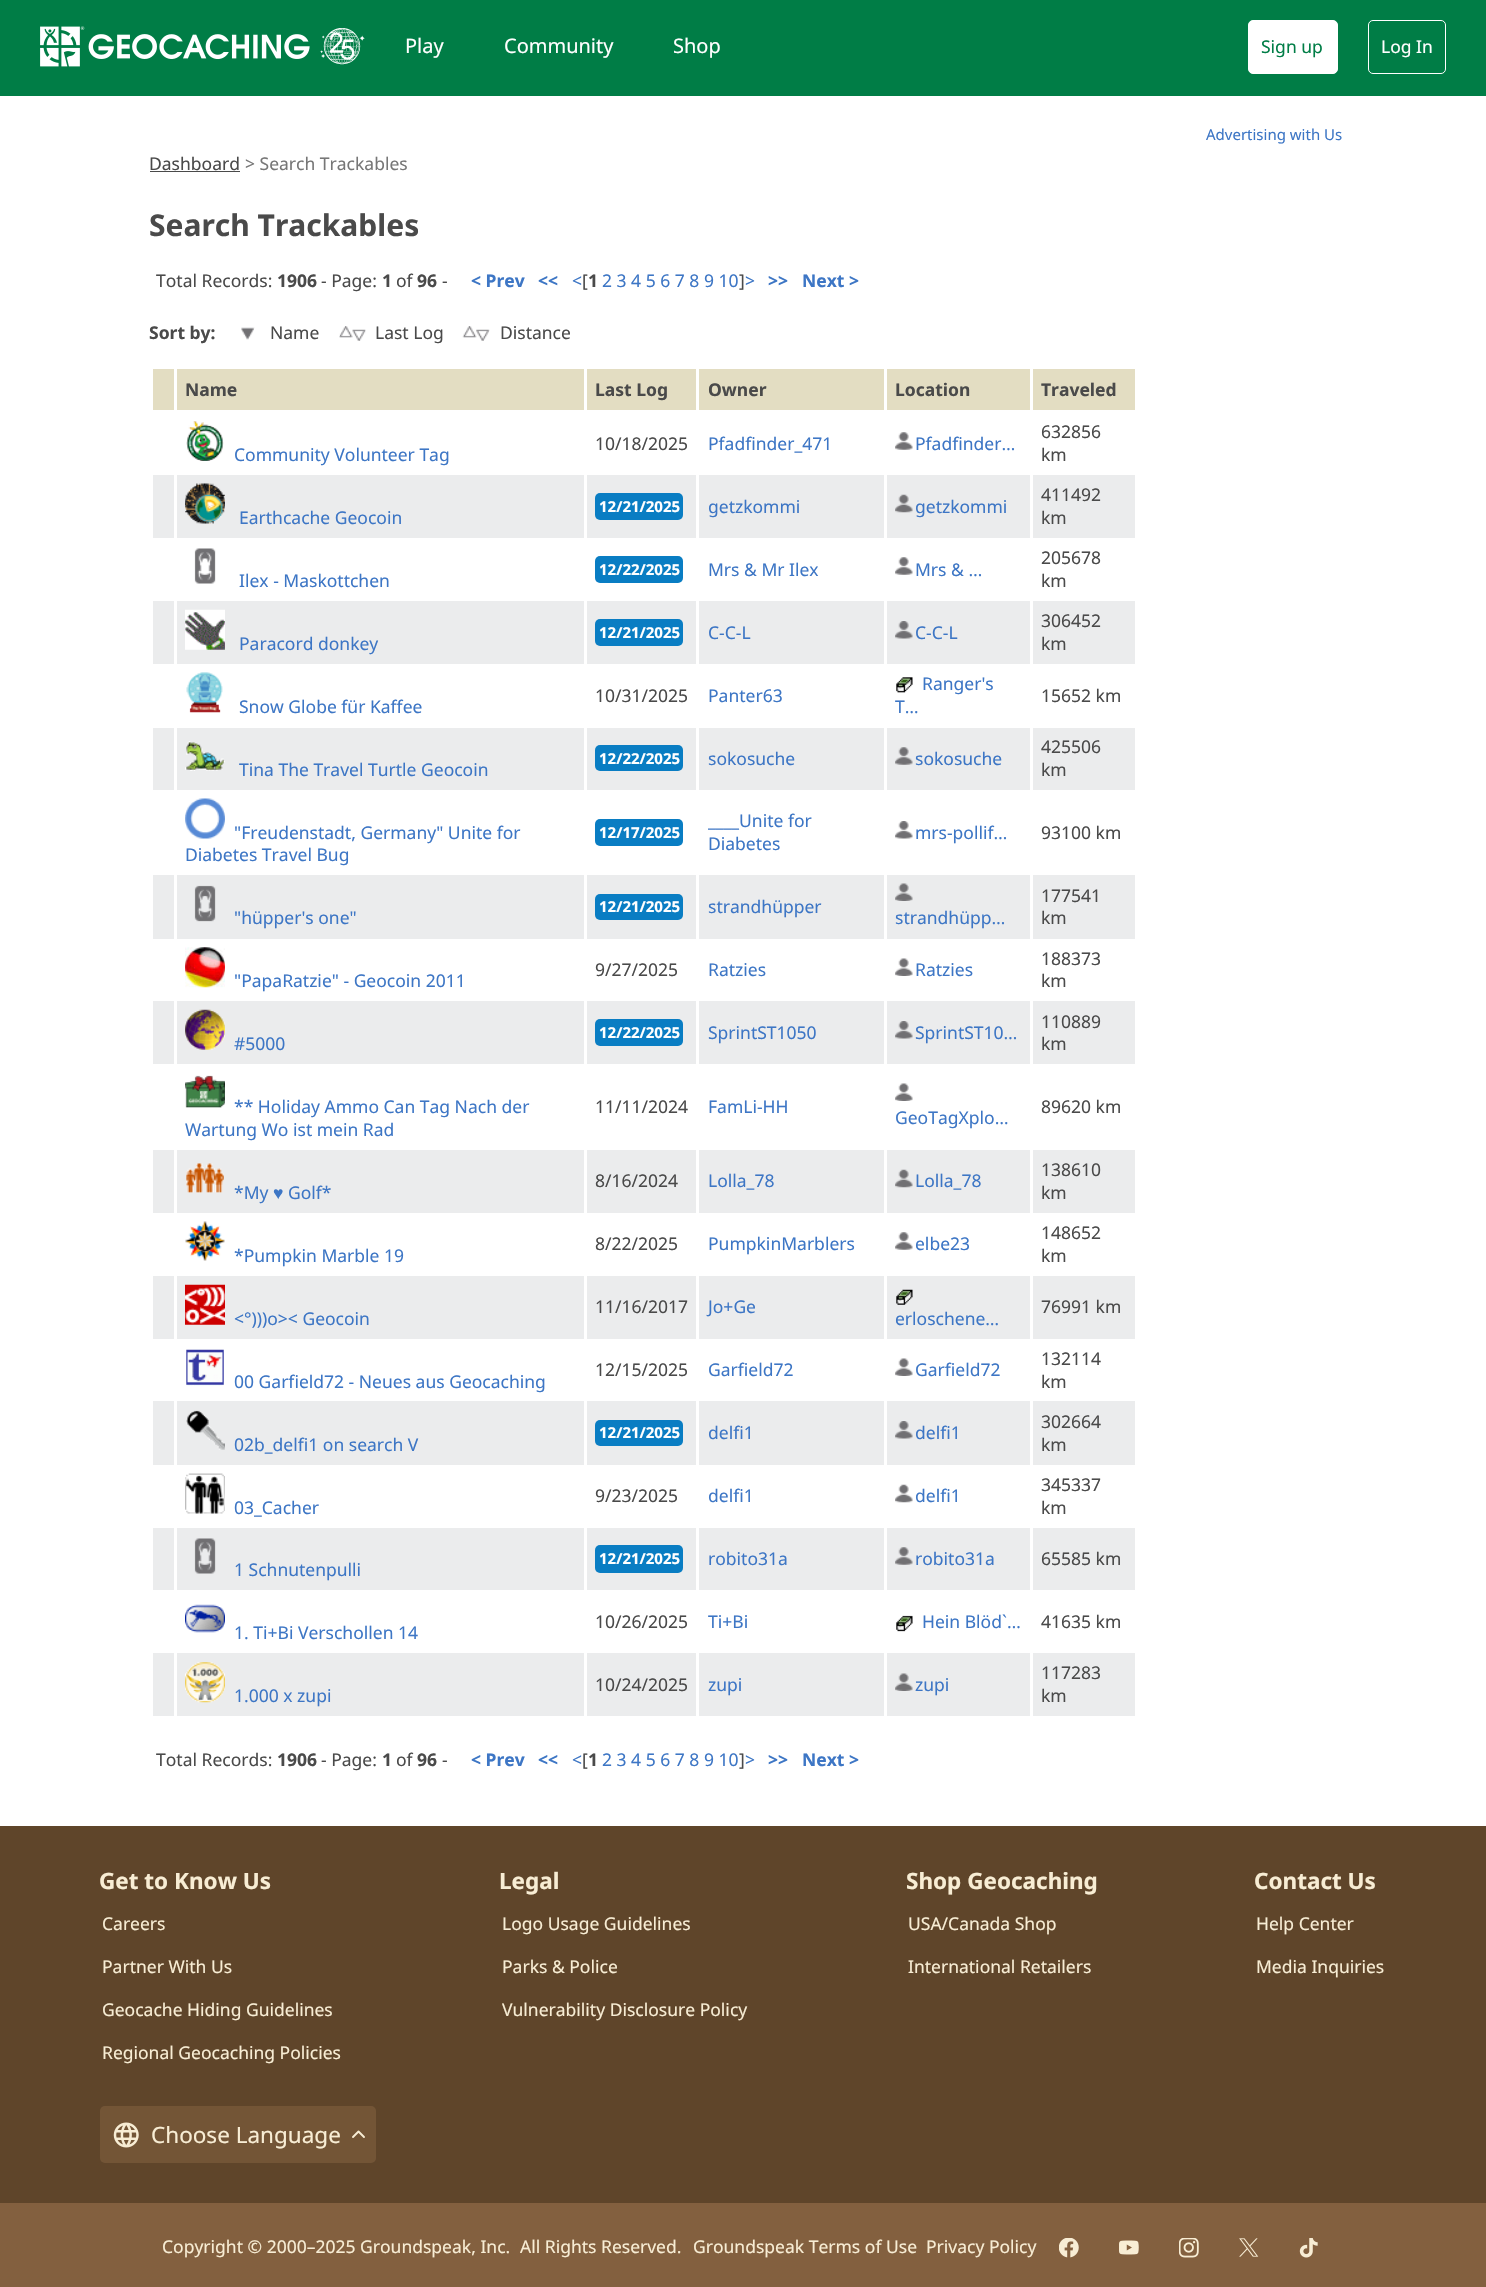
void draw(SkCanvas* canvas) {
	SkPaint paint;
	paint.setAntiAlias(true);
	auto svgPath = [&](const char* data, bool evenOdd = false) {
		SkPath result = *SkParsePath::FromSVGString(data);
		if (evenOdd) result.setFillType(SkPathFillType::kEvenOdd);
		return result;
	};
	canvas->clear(0xffffffff);
	paint.setColor(0xff007d46);
	canvas->drawRect(SkRect::MakeXYWH(0, 0, 1486, 96), paint);
	canvas->drawImageRect(SkImages::DeferredFromEncodedData(SkData::MakeFromFileName("img1.png")), SkRect::MakeXYWH(40, 26, 270, 41), SkSamplingOptions());
	canvas->drawImageRect(SkImages::DeferredFromEncodedData(SkData::MakeFromFileName("img2.png")), SkRect::MakeXYWH(320, 28, 45, 37), SkSamplingOptions());
	SkFont f1(fontMgr->matchFamilyStyle("Noto Sans", SkFontStyle::Normal()), 20);
	f1.setSubpixel(true);
	paint.setColor(0xffffffff);
	canvas->drawString("Play", 405, 53, f1, paint);
	canvas->drawString("Community", 504, 53, f1, paint);
	canvas->drawString("Shop", 673, 53, f1, paint);
	canvas->drawRoundRect(SkRect::MakeXYWH(1248.5, 20.5, 89, 53), 4.5, 4.5, paint);
	paint.setStroke(true);
	paint.setStrokeWidth(1);
	canvas->drawRoundRect(SkRect::MakeXYWH(1248.5, 20.5, 89, 53), 4.5, 4.5, paint);
	SkFont f2(fontMgr->matchFamilyStyle("Noto Sans", SkFontStyle::Normal()), 17.5);
	f2.setSubpixel(true);
	paint.setStroke(false);
	paint.setColor(0xff007d46);
	canvas->drawString("Sign up", 1261, 53, f2, paint);
	paint.setStroke(true);
	paint.setColor(0xffffffff);
	canvas->drawRoundRect(SkRect::MakeXYWH(1368.5, 20.5, 77, 53), 4.5, 4.5, paint);
	paint.setStroke(false);
	canvas->drawString("Log In", 1381, 53, f2, paint);
	SkFont f3(fontMgr->matchFamilyStyle("Noto Sans", SkFontStyle::Normal()), 15);
	f3.setSubpixel(true);
	paint.setColor(0xff3d76c5);
	canvas->drawString("Advertising with Us", 1206, 140, f3, paint);
	paint.setColor(0xff4a4a4a);
	canvas->drawString("Dashboard", 149, 170, f2, paint);
	canvas->drawRect(SkRect::MakeXYWH(150, 171, 90, 1), paint);
	paint.setColor(0xff777777);
	canvas->drawString("> Search Trackables", 245, 170, f2, paint);
	SkFont f4(fontMgr->matchFamilyStyle("Noto Sans", SkFontStyle::Bold()), 30);
	f4.setSubpixel(true);
	paint.setColor(0xff4a4a4a);
	canvas->drawString("Search Trackables", 149, 236, f4, paint);
	canvas->drawString("Total Records:", 156, 287, f2, paint);
	SkFont f5(fontMgr->matchFamilyStyle("Noto Sans", SkFontStyle::Bold()), 17.5);
	f5.setSubpixel(true);
	canvas->drawString("1906", 277, 287, f5, paint);
	canvas->drawString("- Page:", 321, 287, f2, paint);
	canvas->drawString("1", 382, 287, f5, paint);
	canvas->drawString("of", 396, 287, f2, paint);
	canvas->drawString("96", 417, 287, f5, paint);
	canvas->drawString("-", 442, 287, f2, paint);
	paint.setColor(0xff3d76c5);
	canvas->drawString("< Prev", 471, 287, f5, paint);
	canvas->drawString("<<", 538, 287, f5, paint);
	canvas->drawString("<", 572, 287, f2, paint);
	paint.setColor(0xff4a4a4a);
	canvas->drawString("[", 582, 287, f2, paint);
	canvas->drawString("1", 588, 287, f5, paint);
	paint.setColor(0xff3d76c5);
	canvas->drawString("2 3 4 5 6 7 8 9 10", 602, 287, f2, paint);
	paint.setColor(0xff4a4a4a);
	canvas->drawString("]", 739, 287, f2, paint);
	paint.setColor(0xff3d76c5);
	canvas->drawString(">", 745, 287, f2, paint);
	canvas->drawString(">>", 768, 287, f5, paint);
	canvas->drawString("Next >", 802, 287, f5, paint);
	paint.setColor(0xff4a4a4a);
	canvas->drawString("Sort by:", 149, 339, f5, paint);
	canvas->drawImageRect(SkImages::DeferredFromEncodedData(SkData::MakeFromFileName("img3.png")), SkRect::MakeXYWH(241, 327, 14, 13), SkSamplingOptions());
	canvas->drawString("Name", 270, 339, f2, paint);
	canvas->drawImageRect(SkImages::DeferredFromEncodedData(SkData::MakeFromFileName("img4.png")), SkRect::MakeXYWH(339, 326, 27, 15), SkSamplingOptions());
	canvas->drawString("Last Log", 375, 339, f2, paint);
	canvas->drawImageRect(SkImages::DeferredFromEncodedData(SkData::MakeFromFileName("img5.png")), SkRect::MakeXYWH(462, 326, 28, 15), SkSamplingOptions());
	canvas->drawString("Distance", 500, 339, f2, paint);
	paint.setColor(0xffe3ddc2);
	canvas->drawRect(SkRect::MakeXYWH(153, 369, 21, 41), paint);
	canvas->drawRect(SkRect::MakeXYWH(177, 369, 407, 41), paint);
	paint.setColor(0xff4a4a4a);
	canvas->drawString("Name", 185, 396, f5, paint);
	paint.setColor(0xffe3ddc2);
	canvas->drawRect(SkRect::MakeXYWH(587, 369, 109, 41), paint);
	paint.setColor(0xff4a4a4a);
	canvas->drawString("Last Log", 595, 396, f5, paint);
	paint.setColor(0xffe3ddc2);
	canvas->drawRect(SkRect::MakeXYWH(699, 369, 185, 41), paint);
	paint.setColor(0xff4a4a4a);
	canvas->drawString("Owner", 708, 396, f5, paint);
	paint.setColor(0xffe3ddc2);
	canvas->drawRect(SkRect::MakeXYWH(887, 369, 143, 41), paint);
	paint.setColor(0xff4a4a4a);
	canvas->drawString("Location", 895, 396, f5, paint);
	paint.setColor(0xffe3ddc2);
	canvas->drawRect(SkRect::MakeXYWH(1033, 369, 102, 41), paint);
	paint.setColor(0xff4a4a4a);
	canvas->drawString("Traveled", 1041, 396, f5, paint);
	canvas->drawString("10/18/2025", 595, 450, f2, paint);
	paint.setColor(0xff3d76c5);
	canvas->drawString("Pfadfinder_471", 708, 450, f2, paint);
	canvas->drawImageRect(SkImages::DeferredFromEncodedData(SkData::MakeFromFileName("img6.png")), SkRect::MakeXYWH(895, 432, 18, 18), SkSamplingOptions());
	canvas->drawString("Pfadfinder…", 915, 450, f2, paint);
	paint.setColor(0xff4a4a4a);
	canvas->drawString("632856", 1041, 438, f2, paint);
	canvas->drawString("km", 1041, 461, f2, paint);
	canvas->drawImageRect(SkImages::DeferredFromEncodedData(SkData::MakeFromFileName("img7.png")), SkRect::MakeXYWH(186, 421, 38, 40), SkSamplingOptions());
	paint.setColor(0xff3d76c5);
	canvas->drawString("Community Volunteer Tag", 234, 461, f2, paint);
	paint.setColor(0xffebeced);
	canvas->drawRect(SkRect::MakeXYWH(153, 475, 982, 63), paint);
	paint.setColor(0xff097dc3);
	canvas->drawRoundRect(SkRect::MakeXYWH(595, 493, 88, 27), 5, 5, paint);
	SkFont f6(fontMgr->matchFamilyStyle("Noto Sans", SkFontStyle::Bold()), 15);
	f6.setSubpixel(true);
	paint.setColor(0xffffffff);
	canvas->drawString("12/21/2025", 599, 512, f6, paint);
	paint.setColor(0xff3d76c5);
	canvas->drawString("getzkommi", 708, 513, f2, paint);
	canvas->drawImageRect(SkImages::DeferredFromEncodedData(SkData::MakeFromFileName("img8.png")), SkRect::MakeXYWH(895, 494, 18, 19), SkSamplingOptions());
	canvas->drawString("getzkommi", 915, 513, f2, paint);
	paint.setColor(0xff4a4a4a);
	canvas->drawString("411492", 1041, 501, f2, paint);
	canvas->drawString("km", 1041, 524, f2, paint);
	canvas->drawImageRect(SkImages::DeferredFromEncodedData(SkData::MakeFromFileName("img9.png")), SkRect::MakeXYWH(185, 483, 40, 41), SkSamplingOptions());
	paint.setColor(0xff3d76c5);
	canvas->drawString("Earthcache Geocoin", 239, 524, f2, paint);
	paint.setColor(0xffffffff);
	canvas->drawRect(SkRect::MakeXYWH(584, 474, 3, 65), paint);
	paint.setColor(0xff097dc3);
	canvas->drawRoundRect(SkRect::MakeXYWH(595, 556, 88, 27), 5, 5, paint);
	paint.setColor(0xffffffff);
	canvas->drawString("12/22/2025", 599, 575, f6, paint);
	canvas->drawRect(SkRect::MakeXYWH(696, 474, 3, 65), paint);
	paint.setColor(0xff3d76c5);
	canvas->drawString("Mrs & Mr Ilex", 708, 576, f2, paint);
	paint.setColor(0xffffffff);
	canvas->drawRect(SkRect::MakeXYWH(884, 474, 3, 65), paint);
	canvas->drawImageRect(SkImages::DeferredFromEncodedData(SkData::MakeFromFileName("img6.png")), SkRect::MakeXYWH(895, 557, 18, 18), SkSamplingOptions());
	paint.setColor(0xff3d76c5);
	canvas->drawString("Mrs & …", 915, 576, f2, paint);
	paint.setColor(0xffffffff);
	canvas->drawRect(SkRect::MakeXYWH(1030, 474, 3, 65), paint);
	paint.setColor(0xff4a4a4a);
	canvas->drawString("205678", 1041, 564, f2, paint);
	canvas->drawString("km", 1041, 587, f2, paint);
	paint.setColor(0xffffffff);
	canvas->drawRect(SkRect::MakeXYWH(174, 474, 3, 65), paint);
	canvas->drawImageRect(SkImages::DeferredFromEncodedData(SkData::MakeFromFileName("img10.png")), SkRect::MakeXYWH(194, 548, 22, 36), SkSamplingOptions());
	paint.setColor(0xff3d76c5);
	canvas->drawString("Ilex - Maskottchen", 239, 587, f2, paint);
	paint.setColor(0xffebeced);
	canvas->drawRect(SkRect::MakeXYWH(153, 601, 982, 63), paint);
	paint.setColor(0xff097dc3);
	canvas->drawRoundRect(SkRect::MakeXYWH(595, 619, 88, 27), 5, 5, paint);
	paint.setColor(0xffffffff);
	canvas->drawString("12/21/2025", 599, 638, f6, paint);
	paint.setColor(0xff3d76c5);
	canvas->drawString("C-C-L", 708, 639, f2, paint);
	canvas->drawImageRect(SkImages::DeferredFromEncodedData(SkData::MakeFromFileName("img11.png")), SkRect::MakeXYWH(895, 621, 18, 18), SkSamplingOptions());
	canvas->drawString("C-C-L", 915, 639, f2, paint);
	paint.setColor(0xff4a4a4a);
	canvas->drawString("306452", 1041, 627, f2, paint);
	canvas->drawString("km", 1041, 650, f2, paint);
	canvas->drawImageRect(SkImages::DeferredFromEncodedData(SkData::MakeFromFileName("img12.png")), SkRect::MakeXYWH(185, 609, 40, 41), SkSamplingOptions());
	paint.setColor(0xff3d76c5);
	canvas->drawString("Paracord donkey", 239, 650, f2, paint);
	paint.setColor(0xffffffff);
	canvas->drawRect(SkRect::MakeXYWH(584, 600, 3, 65), paint);
	paint.setColor(0xff4a4a4a);
	canvas->drawString("10/31/2025", 595, 702, f2, paint);
	paint.setColor(0xffffffff);
	canvas->drawRect(SkRect::MakeXYWH(696, 600, 3, 65), paint);
	paint.setColor(0xff3d76c5);
	canvas->drawString("Panter63", 708, 702, f2, paint);
	paint.setColor(0xffffffff);
	canvas->drawRect(SkRect::MakeXYWH(884, 600, 3, 65), paint);
	canvas->drawImageRect(SkImages::DeferredFromEncodedData(SkData::MakeFromFileName("img13.png")), SkRect::MakeXYWH(896, 677, 17, 16), SkSamplingOptions());
	paint.setColor(0xff3d76c5);
	canvas->drawString("Ranger's", 922, 690, f2, paint);
	canvas->drawString("T…", 895, 713, f2, paint);
	paint.setColor(0xffffffff);
	canvas->drawRect(SkRect::MakeXYWH(1030, 600, 3, 65), paint);
	paint.setColor(0xff4a4a4a);
	canvas->drawString("15652 km", 1041, 702, f2, paint);
	paint.setColor(0xffffffff);
	canvas->drawRect(SkRect::MakeXYWH(174, 600, 3, 65), paint);
	canvas->drawImageRect(SkImages::DeferredFromEncodedData(SkData::MakeFromFileName("img14.png")), SkRect::MakeXYWH(186, 672, 37, 41), SkSamplingOptions());
	paint.setColor(0xff3d76c5);
	canvas->drawString("Snow Globe für Kaffee", 239, 713, f2, paint);
	paint.setColor(0xffebeced);
	canvas->drawRect(SkRect::MakeXYWH(153, 728, 982, 62), paint);
	paint.setColor(0xff097dc3);
	canvas->drawRoundRect(SkRect::MakeXYWH(595, 745, 88, 26), 5, 5, paint);
	paint.setColor(0xffffffff);
	canvas->drawString("12/22/2025", 599, 764, f6, paint);
	paint.setColor(0xff3d76c5);
	canvas->drawString("sokosuche", 708, 765, f2, paint);
	canvas->drawImageRect(SkImages::DeferredFromEncodedData(SkData::MakeFromFileName("img15.png")), SkRect::MakeXYWH(895, 747, 18, 18), SkSamplingOptions());
	canvas->drawString("sokosuche", 915, 765, f2, paint);
	paint.setColor(0xff4a4a4a);
	canvas->drawString("425506", 1041, 753, f2, paint);
	canvas->drawString("km", 1041, 776, f2, paint);
	canvas->drawImageRect(SkImages::DeferredFromEncodedData(SkData::MakeFromFileName("img16.png")), SkRect::MakeXYWH(185, 741, 40, 30), SkSamplingOptions());
	paint.setColor(0xff3d76c5);
	canvas->drawString("Tina The Travel Turtle Geocoin", 239, 776, f2, paint);
	paint.setColor(0xffffffff);
	canvas->drawRect(SkRect::MakeXYWH(174, 726, 3, 65), paint);
	canvas->drawImageRect(SkImages::DeferredFromEncodedData(SkData::MakeFromFileName("img17.png")), SkRect::MakeXYWH(185, 798, 40, 41), SkSamplingOptions());
	paint.setColor(0xff3d76c5);
	canvas->drawString("\"Freudenstadt, Germany\" Unite for", 234, 839, f2, paint);
	canvas->drawString("Diabetes Travel Bug", 185, 861, f2, paint);
	paint.setColor(0xffffffff);
	canvas->drawRect(SkRect::MakeXYWH(584, 726, 3, 65), paint);
	paint.setColor(0xff097dc3);
	canvas->drawRoundRect(SkRect::MakeXYWH(595, 819, 88, 27), 5, 5, paint);
	paint.setColor(0xffffffff);
	canvas->drawString("12/17/2025", 599, 838, f6, paint);
	canvas->drawRect(SkRect::MakeXYWH(696, 726, 3, 65), paint);
	paint.setColor(0xff3d76c5);
	canvas->drawString("____Unite for", 708, 827, f2, paint);
	canvas->drawString("Diabetes", 708, 850, f2, paint);
	paint.setColor(0xffffffff);
	canvas->drawRect(SkRect::MakeXYWH(884, 726, 3, 65), paint);
	canvas->drawImageRect(SkImages::DeferredFromEncodedData(SkData::MakeFromFileName("img18.png")), SkRect::MakeXYWH(895, 821, 18, 18), SkSamplingOptions());
	paint.setColor(0xff3d76c5);
	canvas->drawString("mrs-pollif…", 915, 839, f2, paint);
	paint.setColor(0xffffffff);
	canvas->drawRect(SkRect::MakeXYWH(1030, 726, 3, 65), paint);
	paint.setColor(0xff4a4a4a);
	canvas->drawString("93100 km", 1041, 839, f2, paint);
	paint.setColor(0xffebeced);
	canvas->drawRect(SkRect::MakeXYWH(153, 875, 982, 64), paint);
	paint.setColor(0xff097dc3);
	canvas->drawRoundRect(SkRect::MakeXYWH(595, 894, 88, 26), 5, 5, paint);
	paint.setColor(0xffffffff);
	canvas->drawString("12/21/2025", 599, 912, f6, paint);
	paint.setColor(0xff3d76c5);
	canvas->drawString("strandhüpper", 708, 913, f2, paint);
	paint.setColor(0xff4a4a4a);
	canvas->drawString("177541", 1041, 902, f2, paint);
	canvas->drawString("km", 1041, 924, f2, paint);
	canvas->drawImageRect(SkImages::DeferredFromEncodedData(SkData::MakeFromFileName("img19.png")), SkRect::MakeXYWH(194, 885, 22, 37), SkSamplingOptions());
	paint.setColor(0xff3d76c5);
	canvas->drawString("\"hüpper's one\"", 234, 924, f2, paint);
	canvas->drawImageRect(SkImages::DeferredFromEncodedData(SkData::MakeFromFileName("img20.png")), SkRect::MakeXYWH(895, 883, 18, 18), SkSamplingOptions());
	canvas->drawString("strandhüpp…", 895, 924, f2, paint);
	paint.setColor(0xffffffff);
	canvas->drawRect(SkRect::MakeXYWH(584, 874, 3, 66), paint);
	paint.setColor(0xff4a4a4a);
	canvas->drawString("9/27/2025", 595, 976, f2, paint);
	paint.setColor(0xffffffff);
	canvas->drawRect(SkRect::MakeXYWH(696, 874, 3, 66), paint);
	paint.setColor(0xff3d76c5);
	canvas->drawString("Ratzies", 708, 976, f2, paint);
	paint.setColor(0xffffffff);
	canvas->drawRect(SkRect::MakeXYWH(884, 874, 3, 66), paint);
	canvas->drawImageRect(SkImages::DeferredFromEncodedData(SkData::MakeFromFileName("img21.png")), SkRect::MakeXYWH(895, 958, 18, 18), SkSamplingOptions());
	paint.setColor(0xff3d76c5);
	canvas->drawString("Ratzies", 915, 976, f2, paint);
	paint.setColor(0xffffffff);
	canvas->drawRect(SkRect::MakeXYWH(1030, 874, 3, 66), paint);
	paint.setColor(0xff4a4a4a);
	canvas->drawString("188373", 1041, 965, f2, paint);
	canvas->drawString("km", 1041, 987, f2, paint);
	paint.setColor(0xffffffff);
	canvas->drawRect(SkRect::MakeXYWH(174, 874, 3, 66), paint);
	canvas->drawImageRect(SkImages::DeferredFromEncodedData(SkData::MakeFromFileName("img22.png")), SkRect::MakeXYWH(185, 947, 40, 41), SkSamplingOptions());
	paint.setColor(0xff3d76c5);
	canvas->drawString("\"PapaRatzie\" - Geocoin 2011", 234, 987, f2, paint);
	paint.setColor(0xffebeced);
	canvas->drawRect(SkRect::MakeXYWH(153, 1001, 982, 63), paint);
	paint.setColor(0xff097dc3);
	canvas->drawRoundRect(SkRect::MakeXYWH(595, 1019, 88, 27), 5, 5, paint);
	paint.setColor(0xffffffff);
	canvas->drawString("12/22/2025", 599, 1038, f6, paint);
	paint.setColor(0xff3d76c5);
	canvas->drawString("SprintST1050", 708, 1039, f2, paint);
	canvas->drawImageRect(SkImages::DeferredFromEncodedData(SkData::MakeFromFileName("img23.png")), SkRect::MakeXYWH(895, 1021, 18, 18), SkSamplingOptions());
	canvas->drawString("SprintST10…", 915, 1039, f2, paint);
	paint.setColor(0xff4a4a4a);
	canvas->drawString("110889", 1041, 1028, f2, paint);
	canvas->drawString("km", 1041, 1050, f2, paint);
	canvas->drawImageRect(SkImages::DeferredFromEncodedData(SkData::MakeFromFileName("img24.png")), SkRect::MakeXYWH(185, 1009, 40, 41), SkSamplingOptions());
	paint.setColor(0xff3d76c5);
	canvas->drawString("#5000", 234, 1050, f2, paint);
	paint.setColor(0xffffffff);
	canvas->drawRect(SkRect::MakeXYWH(174, 1000, 3, 65), paint);
	canvas->drawImageRect(SkImages::DeferredFromEncodedData(SkData::MakeFromFileName("img25.png")), SkRect::MakeXYWH(185, 1075, 40, 33), SkSamplingOptions());
	paint.setColor(0xff3d76c5);
	canvas->drawString("** Holiday Ammo Can Tag Nach der", 234, 1113, f2, paint);
	canvas->drawString("Wartung Wo ist mein Rad", 185, 1136, f2, paint);
	paint.setColor(0xffffffff);
	canvas->drawRect(SkRect::MakeXYWH(584, 1000, 3, 65), paint);
	paint.setColor(0xff4a4a4a);
	canvas->drawString("11/11/2024", 595, 1113, f2, paint);
	paint.setColor(0xffffffff);
	canvas->drawRect(SkRect::MakeXYWH(696, 1000, 3, 65), paint);
	paint.setColor(0xff3d76c5);
	canvas->drawString("FamLi-HH", 708, 1113, f2, paint);
	paint.setColor(0xffffffff);
	canvas->drawRect(SkRect::MakeXYWH(1030, 1000, 3, 65), paint);
	paint.setColor(0xff4a4a4a);
	canvas->drawString("89620 km", 1041, 1113, f2, paint);
	paint.setColor(0xffffffff);
	canvas->drawRect(SkRect::MakeXYWH(884, 1000, 3, 65), paint);
	canvas->drawImageRect(SkImages::DeferredFromEncodedData(SkData::MakeFromFileName("img21.png")), SkRect::MakeXYWH(895, 1083, 18, 18), SkSamplingOptions());
	paint.setColor(0xff3d76c5);
	canvas->drawString("GeoTagXplo…", 895, 1124, f2, paint);
	paint.setColor(0xffebeced);
	canvas->drawRect(SkRect::MakeXYWH(153, 1150, 982, 63), paint);
	paint.setColor(0xff4a4a4a);
	canvas->drawString("8/16/2024", 595, 1187, f2, paint);
	paint.setColor(0xff3d76c5);
	canvas->drawString("Lolla_78", 708, 1187, f2, paint);
	canvas->drawImageRect(SkImages::DeferredFromEncodedData(SkData::MakeFromFileName("img26.png")), SkRect::MakeXYWH(895, 1169, 18, 19), SkSamplingOptions());
	canvas->drawString("Lolla_78", 915, 1187, f2, paint);
	paint.setColor(0xff4a4a4a);
	canvas->drawString("138610", 1041, 1176, f2, paint);
	canvas->drawString("km", 1041, 1199, f2, paint);
	canvas->drawImageRect(SkImages::DeferredFromEncodedData(SkData::MakeFromFileName("img27.png")), SkRect::MakeXYWH(186, 1163, 38, 30), SkSamplingOptions());
	paint.setColor(0xff3d76c5);
	canvas->drawString("*My", 234, 1199, f2, paint);
	SkFont f7(fontMgr->matchFamilyStyle("Liberation Sans", SkFontStyle::Normal()), 17.5);
	f7.setSubpixel(true);
	canvas->drawString("♥", 273, 1199, f7, paint);
	canvas->drawString("Golf*", 288, 1199, f2, paint);
	paint.setColor(0xffffffff);
	canvas->drawRect(SkRect::MakeXYWH(584, 1149, 3, 65), paint);
	paint.setColor(0xff4a4a4a);
	canvas->drawString("8/22/2025", 595, 1250, f2, paint);
	paint.setColor(0xffffffff);
	canvas->drawRect(SkRect::MakeXYWH(696, 1149, 3, 65), paint);
	paint.setColor(0xff3d76c5);
	canvas->drawString("PumpkinMarblers", 708, 1250, f2, paint);
	paint.setColor(0xffffffff);
	canvas->drawRect(SkRect::MakeXYWH(884, 1149, 3, 65), paint);
	canvas->drawImageRect(SkImages::DeferredFromEncodedData(SkData::MakeFromFileName("img6.png")), SkRect::MakeXYWH(895, 1232, 18, 18), SkSamplingOptions());
	paint.setColor(0xff3d76c5);
	canvas->drawString("elbe23", 915, 1250, f2, paint);
	paint.setColor(0xffffffff);
	canvas->drawRect(SkRect::MakeXYWH(1030, 1149, 3, 65), paint);
	paint.setColor(0xff4a4a4a);
	canvas->drawString("148652", 1041, 1239, f2, paint);
	canvas->drawString("km", 1041, 1262, f2, paint);
	paint.setColor(0xffffffff);
	canvas->drawRect(SkRect::MakeXYWH(174, 1149, 3, 65), paint);
	canvas->drawImageRect(SkImages::DeferredFromEncodedData(SkData::MakeFromFileName("img28.png")), SkRect::MakeXYWH(185, 1221, 40, 40), SkSamplingOptions());
	paint.setColor(0xff3d76c5);
	canvas->drawString("*Pumpkin Marble 19", 234, 1262, f2, paint);
	paint.setColor(0xffebeced);
	canvas->drawRect(SkRect::MakeXYWH(153, 1276, 982, 63), paint);
	paint.setColor(0xff4a4a4a);
	canvas->drawString("11/16/2017", 595, 1313, f2, paint);
	paint.setColor(0xff3d76c5);
	canvas->drawString("Jo+Ge", 708, 1313, f2, paint);
	paint.setColor(0xff4a4a4a);
	canvas->drawString("76991 km", 1041, 1313, f2, paint);
	canvas->drawImageRect(SkImages::DeferredFromEncodedData(SkData::MakeFromFileName("img29.png")), SkRect::MakeXYWH(185, 1284, 40, 41), SkSamplingOptions());
	paint.setColor(0xff3d76c5);
	canvas->drawString("<°)))o>< Geocoin", 234, 1325, f2, paint);
	canvas->drawImageRect(SkImages::DeferredFromEncodedData(SkData::MakeFromFileName("img30.png")), SkRect::MakeXYWH(896, 1289, 17, 16), SkSamplingOptions());
	canvas->drawString("erloschene…", 895, 1325, f2, paint);
	paint.setColor(0xffffffff);
	canvas->drawRect(SkRect::MakeXYWH(584, 1275, 3, 65), paint);
	paint.setColor(0xff4a4a4a);
	canvas->drawString("12/15/2025", 595, 1376, f2, paint);
	paint.setColor(0xffffffff);
	canvas->drawRect(SkRect::MakeXYWH(696, 1275, 3, 65), paint);
	paint.setColor(0xff3d76c5);
	canvas->drawString("Garfield72", 708, 1376, f2, paint);
	paint.setColor(0xffffffff);
	canvas->drawRect(SkRect::MakeXYWH(884, 1275, 3, 65), paint);
	canvas->drawImageRect(SkImages::DeferredFromEncodedData(SkData::MakeFromFileName("img21.png")), SkRect::MakeXYWH(895, 1358, 18, 18), SkSamplingOptions());
	paint.setColor(0xff3d76c5);
	canvas->drawString("Garfield72", 915, 1376, f2, paint);
	paint.setColor(0xffffffff);
	canvas->drawRect(SkRect::MakeXYWH(1030, 1275, 3, 65), paint);
	paint.setColor(0xff4a4a4a);
	canvas->drawString("132114", 1041, 1365, f2, paint);
	canvas->drawString("km", 1041, 1388, f2, paint);
	paint.setColor(0xffffffff);
	canvas->drawRect(SkRect::MakeXYWH(174, 1275, 3, 65), paint);
	canvas->drawImageRect(SkImages::DeferredFromEncodedData(SkData::MakeFromFileName("img31.png")), SkRect::MakeXYWH(186, 1349, 38, 37), SkSamplingOptions());
	paint.setColor(0xff3d76c5);
	canvas->drawString("00 Garfield72 - Neues aus Geocaching", 234, 1388, f2, paint);
	paint.setColor(0xffebeced);
	canvas->drawRect(SkRect::MakeXYWH(153, 1401, 982, 64), paint);
	paint.setColor(0xff097dc3);
	canvas->drawRoundRect(SkRect::MakeXYWH(595, 1420, 88, 26), 5, 5, paint);
	paint.setColor(0xffffffff);
	canvas->drawString("12/21/2025", 599, 1438, f6, paint);
	paint.setColor(0xff3d76c5);
	canvas->drawString("delfi1", 708, 1439, f2, paint);
	canvas->drawImageRect(SkImages::DeferredFromEncodedData(SkData::MakeFromFileName("img11.png")), SkRect::MakeXYWH(895, 1421, 18, 18), SkSamplingOptions());
	canvas->drawString("delfi1", 915, 1439, f2, paint);
	paint.setColor(0xff4a4a4a);
	canvas->drawString("302664", 1041, 1428, f2, paint);
	canvas->drawString("km", 1041, 1451, f2, paint);
	canvas->drawImageRect(SkImages::DeferredFromEncodedData(SkData::MakeFromFileName("img32.png")), SkRect::MakeXYWH(186, 1410, 39, 40), SkSamplingOptions());
	paint.setColor(0xff3d76c5);
	canvas->drawString("02b_delfi1 on search V", 234, 1451, f2, paint);
	paint.setColor(0xffffffff);
	canvas->drawRect(SkRect::MakeXYWH(584, 1400, 3, 66), paint);
	paint.setColor(0xff4a4a4a);
	canvas->drawString("9/23/2025", 595, 1502, f2, paint);
	paint.setColor(0xffffffff);
	canvas->drawRect(SkRect::MakeXYWH(696, 1400, 3, 66), paint);
	paint.setColor(0xff3d76c5);
	canvas->drawString("delfi1", 708, 1502, f2, paint);
	paint.setColor(0xffffffff);
	canvas->drawRect(SkRect::MakeXYWH(884, 1400, 3, 66), paint);
	canvas->drawImageRect(SkImages::DeferredFromEncodedData(SkData::MakeFromFileName("img33.png")), SkRect::MakeXYWH(895, 1484, 18, 19), SkSamplingOptions());
	paint.setColor(0xff3d76c5);
	canvas->drawString("delfi1", 915, 1502, f2, paint);
	paint.setColor(0xffffffff);
	canvas->drawRect(SkRect::MakeXYWH(1030, 1400, 3, 66), paint);
	paint.setColor(0xff4a4a4a);
	canvas->drawString("345337", 1041, 1491, f2, paint);
	canvas->drawString("km", 1041, 1514, f2, paint);
	paint.setColor(0xffffffff);
	canvas->drawRect(SkRect::MakeXYWH(174, 1400, 3, 66), paint);
	canvas->drawImageRect(SkImages::DeferredFromEncodedData(SkData::MakeFromFileName("img34.png")), SkRect::MakeXYWH(185, 1473, 40, 41), SkSamplingOptions());
	paint.setColor(0xff3d76c5);
	canvas->drawString("03_Cacher", 234, 1514, f2, paint);
	paint.setColor(0xffebeced);
	canvas->drawRect(SkRect::MakeXYWH(153, 1528, 982, 62), paint);
	paint.setColor(0xff097dc3);
	canvas->drawRoundRect(SkRect::MakeXYWH(595, 1545, 88, 28), 5, 5, paint);
	paint.setColor(0xffffffff);
	canvas->drawString("12/21/2025", 599, 1564, f6, paint);
	paint.setColor(0xff3d76c5);
	canvas->drawString("robito31a", 708, 1565, f2, paint);
	canvas->drawImageRect(SkImages::DeferredFromEncodedData(SkData::MakeFromFileName("img35.png")), SkRect::MakeXYWH(895, 1547, 18, 18), SkSamplingOptions());
	canvas->drawString("robito31a", 915, 1565, f2, paint);
	paint.setColor(0xff4a4a4a);
	canvas->drawString("65585 km", 1041, 1565, f2, paint);
	canvas->drawImageRect(SkImages::DeferredFromEncodedData(SkData::MakeFromFileName("img36.png")), SkRect::MakeXYWH(194, 1538, 22, 36), SkSamplingOptions());
	paint.setColor(0xff3d76c5);
	canvas->drawString("1 Schnutenpulli", 234, 1576, f2, paint);
	paint.setColor(0xffffffff);
	canvas->drawRect(SkRect::MakeXYWH(584, 1526, 3, 65), paint);
	paint.setColor(0xff4a4a4a);
	canvas->drawString("10/26/2025", 595, 1628, f2, paint);
	paint.setColor(0xffffffff);
	canvas->drawRect(SkRect::MakeXYWH(696, 1526, 3, 65), paint);
	paint.setColor(0xff3d76c5);
	canvas->drawString("Ti+Bi", 708, 1628, f2, paint);
	paint.setColor(0xffffffff);
	canvas->drawRect(SkRect::MakeXYWH(884, 1526, 3, 65), paint);
	canvas->drawImageRect(SkImages::DeferredFromEncodedData(SkData::MakeFromFileName("img37.png")), SkRect::MakeXYWH(896, 1615, 17, 17), SkSamplingOptions());
	paint.setColor(0xff3d76c5);
	canvas->drawString("Hein Blöd`…", 922, 1628, f2, paint);
	paint.setColor(0xffffffff);
	canvas->drawRect(SkRect::MakeXYWH(1030, 1526, 3, 65), paint);
	paint.setColor(0xff4a4a4a);
	canvas->drawString("41635 km", 1041, 1628, f2, paint);
	paint.setColor(0xffffffff);
	canvas->drawRect(SkRect::MakeXYWH(174, 1526, 3, 65), paint);
	canvas->drawImageRect(SkImages::DeferredFromEncodedData(SkData::MakeFromFileName("img38.png")), SkRect::MakeXYWH(185, 1604, 40, 29), SkSamplingOptions());
	paint.setColor(0xff3d76c5);
	canvas->drawString("1. Ti+Bi Verschollen 14", 234, 1639, f2, paint);
	paint.setColor(0xffebeced);
	canvas->drawRect(SkRect::MakeXYWH(153, 1653, 982, 63), paint);
	paint.setColor(0xffffffff);
	canvas->drawRect(SkRect::MakeXYWH(584, 1651, 3, 68), paint);
	paint.setColor(0xff4a4a4a);
	canvas->drawString("10/24/2025", 595, 1691, f2, paint);
	paint.setColor(0xffffffff);
	canvas->drawRect(SkRect::MakeXYWH(696, 1651, 3, 68), paint);
	paint.setColor(0xff3d76c5);
	canvas->drawString("zupi", 708, 1691, f2, paint);
	paint.setColor(0xffffffff);
	canvas->drawRect(SkRect::MakeXYWH(884, 1651, 3, 68), paint);
	canvas->drawImageRect(SkImages::DeferredFromEncodedData(SkData::MakeFromFileName("img20.png")), SkRect::MakeXYWH(895, 1673, 18, 18), SkSamplingOptions());
	paint.setColor(0xff3d76c5);
	canvas->drawString("zupi", 915, 1691, f2, paint);
	paint.setColor(0xffffffff);
	canvas->drawRect(SkRect::MakeXYWH(1030, 1651, 3, 68), paint);
	paint.setColor(0xff4a4a4a);
	canvas->drawString("117283", 1041, 1679, f2, paint);
	canvas->drawString("km", 1041, 1702, f2, paint);
	paint.setColor(0xffffffff);
	canvas->drawRect(SkRect::MakeXYWH(174, 1651, 3, 68), paint);
	canvas->drawImageRect(SkImages::DeferredFromEncodedData(SkData::MakeFromFileName("img39.png")), SkRect::MakeXYWH(185, 1662, 40, 41), SkSamplingOptions());
	paint.setColor(0xff3d76c5);
	canvas->drawString("1.000 x zupi", 234, 1702, f2, paint);
	paint.setColor(0xff4a4a4a);
	canvas->drawString("Total Records:", 156, 1766, f2, paint);
	canvas->drawString("1906", 277, 1766, f5, paint);
	canvas->drawString("- Page:", 321, 1766, f2, paint);
	canvas->drawString("1", 382, 1766, f5, paint);
	canvas->drawString("of", 396, 1766, f2, paint);
	canvas->drawString("96", 417, 1766, f5, paint);
	canvas->drawString("-", 442, 1766, f2, paint);
	paint.setColor(0xff3d76c5);
	canvas->drawString("< Prev", 471, 1766, f5, paint);
	canvas->drawString("<<", 538, 1766, f5, paint);
	canvas->drawString("<", 572, 1766, f2, paint);
	paint.setColor(0xff4a4a4a);
	canvas->drawString("[", 582, 1766, f2, paint);
	canvas->drawString("1", 588, 1766, f5, paint);
	paint.setColor(0xff3d76c5);
	canvas->drawString("2 3 4 5 6 7 8 9 10", 602, 1766, f2, paint);
	paint.setColor(0xff4a4a4a);
	canvas->drawString("]", 739, 1766, f2, paint);
	paint.setColor(0xff3d76c5);
	canvas->drawString(">", 745, 1766, f2, paint);
	canvas->drawString(">>", 768, 1766, f5, paint);
	canvas->drawString("Next >", 802, 1766, f5, paint);
	paint.setColor(0xff5f452a);
	canvas->drawRect(SkRect::MakeXYWH(0, 1826, 1486, 377), paint);
	SkFont f8(fontMgr->matchFamilyStyle("Noto Sans", SkFontStyle::Bold()), 22.5);
	f8.setSubpixel(true);
	paint.setColor(0xfff8edd4);
	canvas->drawString("Get to Know Us", 99, 1889, f8, paint);
	canvas->drawString("Careers", 102, 1930, f2, paint);
	canvas->drawString("Partner With Us", 102, 1973, f2, paint);
	canvas->drawString("Geocache Hiding Guidelines", 102, 2016, f2, paint);
	canvas->drawString("Regional Geocaching Policies", 102, 2059, f2, paint);
	canvas->drawString("Legal", 499, 1889, f8, paint);
	canvas->drawString("Logo Usage Guidelines", 502, 1930, f2, paint);
	canvas->drawString("Parks & Police", 502, 1973, f2, paint);
	canvas->drawString("Vulnerability Disclosure Policy", 502, 2016, f2, paint);
	canvas->drawString("Shop Geocaching", 906, 1889, f8, paint);
	canvas->drawString("USA/Canada Shop", 908, 1930, f2, paint);
	canvas->drawString("International Retailers", 908, 1973, f2, paint);
	canvas->drawString("Contact Us", 1254, 1889, f8, paint);
	canvas->drawString("Help Center", 1256, 1930, f2, paint);
	canvas->drawString("Media Inquiries", 1256, 1973, f2, paint);
	paint.setColor(0xff735536);
	canvas->drawRoundRect(SkRect::MakeXYWH(100, 2106, 276, 57), 5, 5, paint);
	canvas->drawImageRect(SkImages::DeferredFromEncodedData(SkData::MakeFromFileName("img40.png")), SkRect::MakeXYWH(113, 2122, 26, 26), SkSamplingOptions());
	SkFont f9(fontMgr->matchFamilyStyle("Noto Sans", SkFontStyle::Normal()), 22.5);
	f9.setSubpixel(true);
	paint.setColor(0xfff8edd4);
	canvas->drawString("Choose Language", 151, 2143, f9, paint);
	paint.setStroke(true);
	paint.setStrokeWidth(1.9);
	paint.setStrokeCap(SkPaint::kRound_Cap);
	paint.setStrokeJoin(SkPaint::kRound_Join);
	canvas->drawPath(svgPath("M364 2137L358.5 2131.5L353 2137"), paint);
	paint.setStroke(false);
	paint.setColor(0xff83603f);
	canvas->drawRect(SkRect::MakeXYWH(0, 2203, 1486, 84), paint);
	paint.setColor(0xfff8edd4);
	canvas->drawString("Copyright © 2000–2025 Groundspeak, Inc.", 162, 2253, f2, paint);
	canvas->drawString("All Rights Reserved.", 520, 2253, f2, paint);
	canvas->drawString("Groundspeak Terms of Use", 693, 2253, f2, paint);
	canvas->drawString("Privacy Policy", 926, 2253, f2, paint);
	canvas->drawImageRect(SkImages::DeferredFromEncodedData(SkData::MakeFromFileName("img41.png")), SkRect::MakeXYWH(1059, 2238, 20, 20), SkSamplingOptions());
	canvas->drawImageRect(SkImages::DeferredFromEncodedData(SkData::MakeFromFileName("img42.png")), SkRect::MakeXYWH(1119, 2240, 20, 15), SkSamplingOptions());
	canvas->drawImageRect(SkImages::DeferredFromEncodedData(SkData::MakeFromFileName("img43.png")), SkRect::MakeXYWH(1179, 2238, 20, 20), SkSamplingOptions());
	canvas->drawImageRect(SkImages::DeferredFromEncodedData(SkData::MakeFromFileName("img44.png")), SkRect::MakeXYWH(1239, 2238, 20, 19), SkSamplingOptions());
	canvas->drawImageRect(SkImages::DeferredFromEncodedData(SkData::MakeFromFileName("img45.png")), SkRect::MakeXYWH(1299, 2238, 19, 20), SkSamplingOptions());
}
